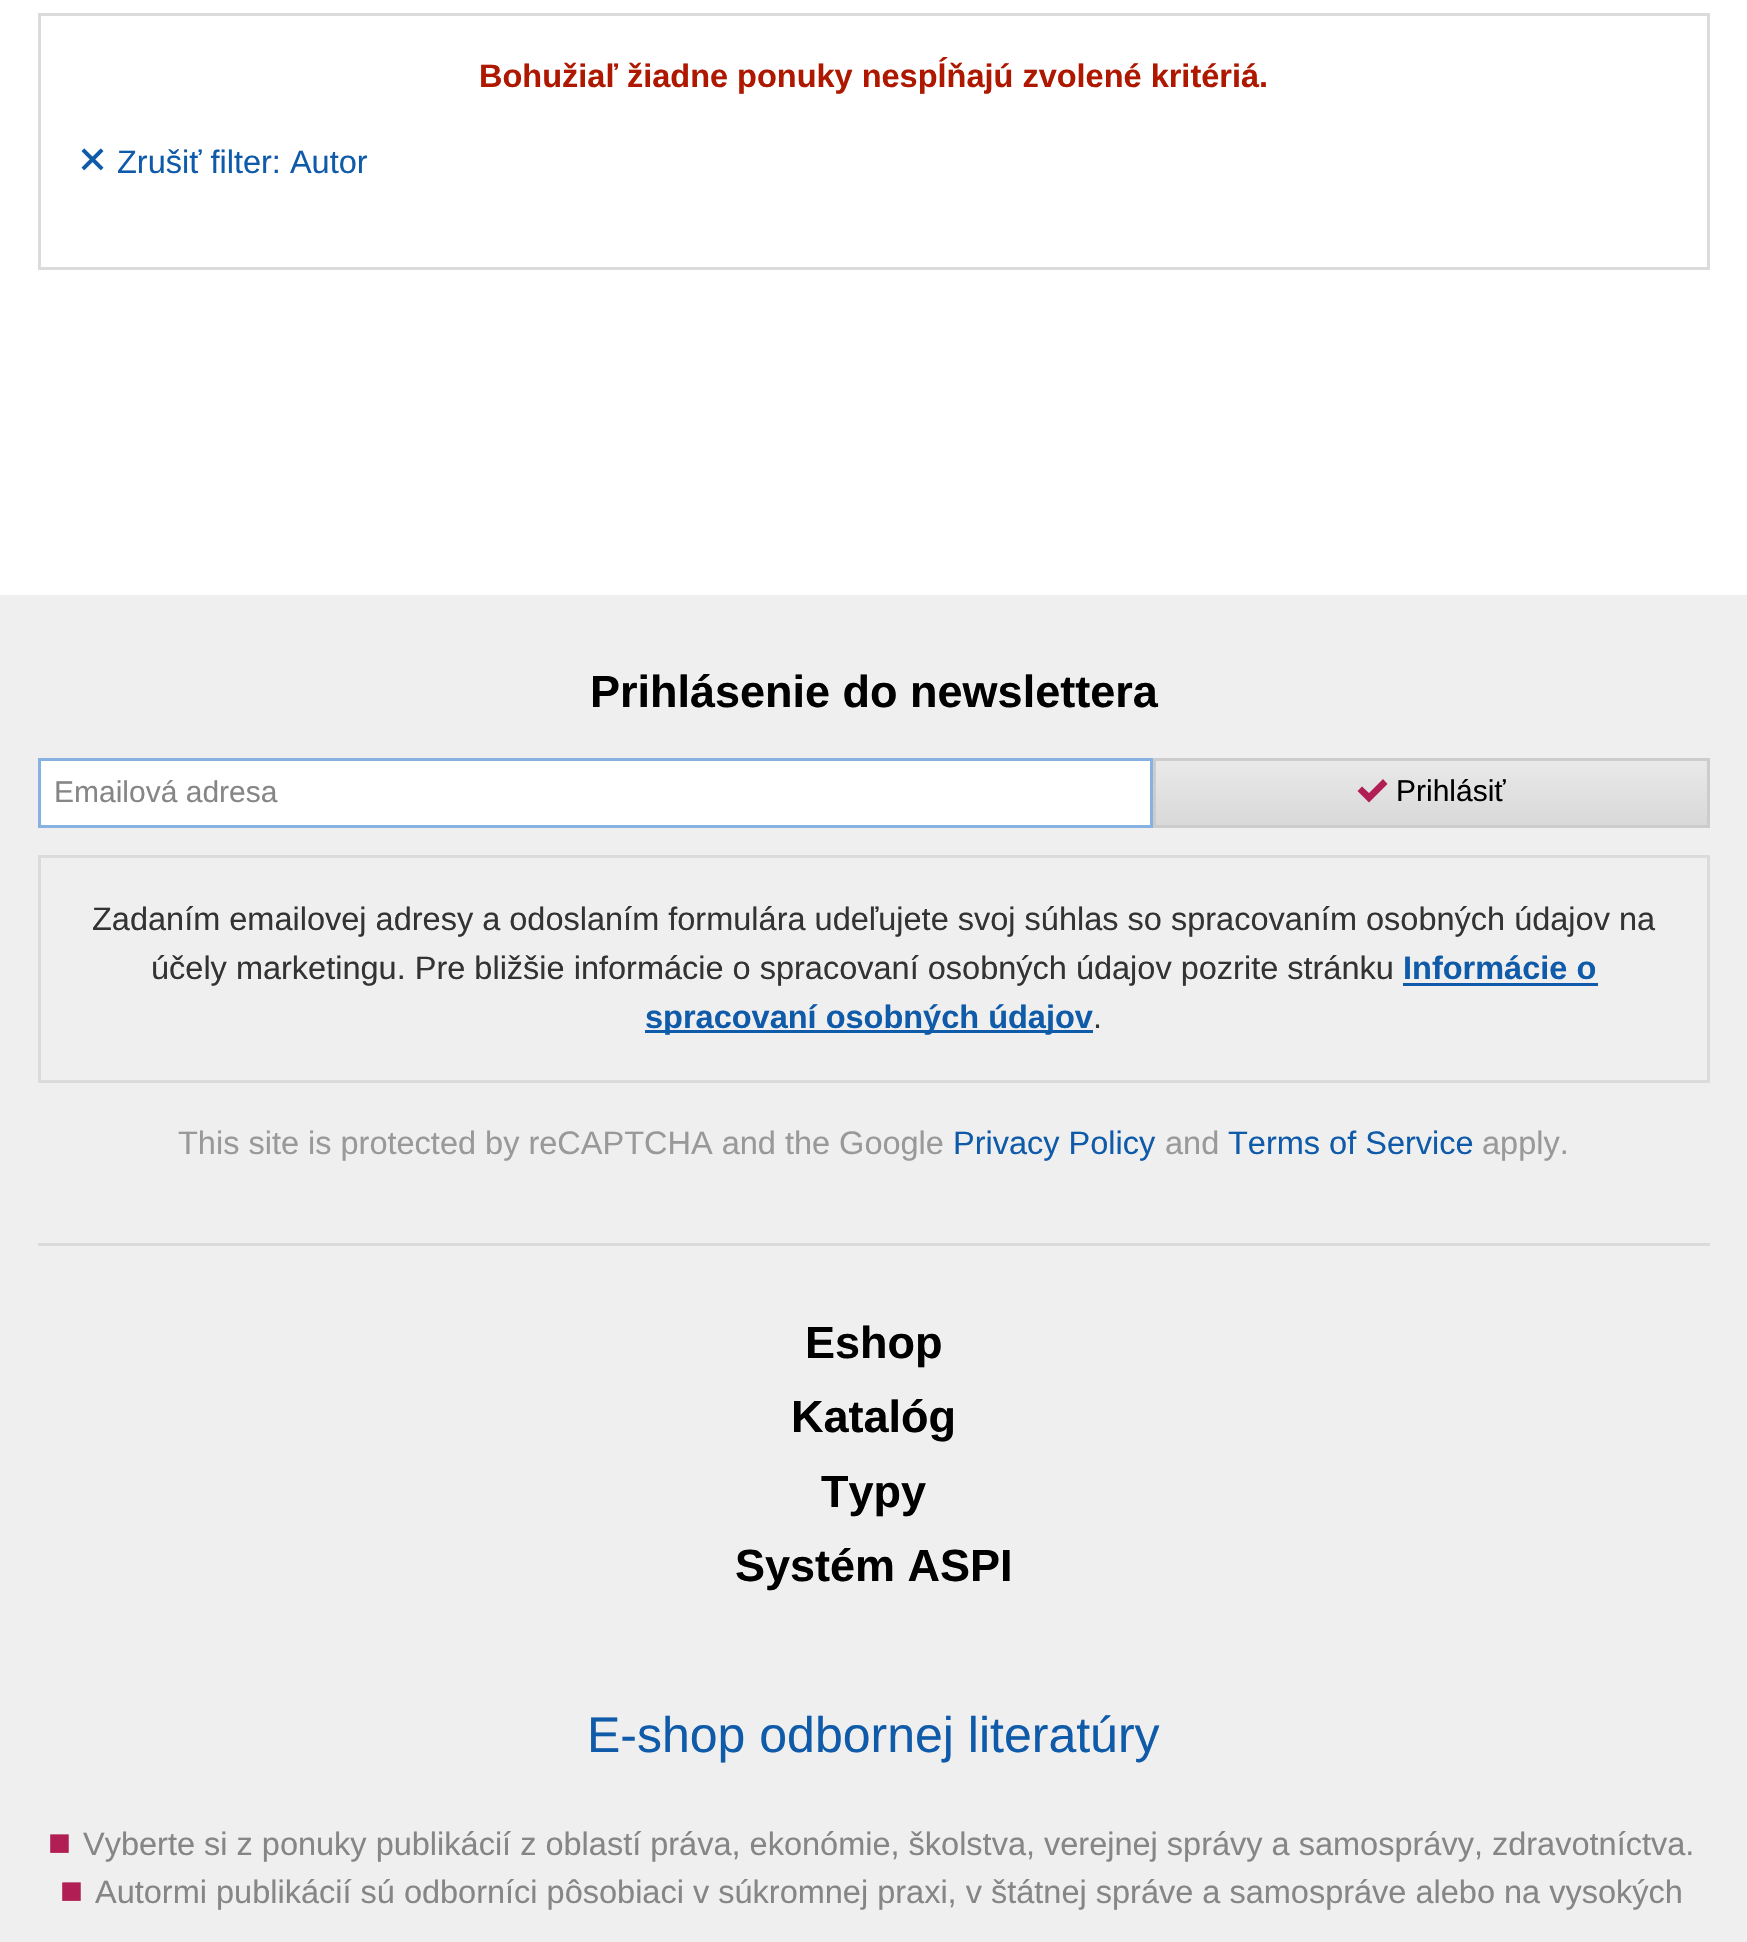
void draw(SkCanvas* canvas) {
	SkPaint paint;
	paint.setAntiAlias(true);
	auto svgPath = [&](const char* data, bool evenOdd = false) {
		SkPath result = *SkParsePath::FromSVGString(data);
		if (evenOdd) result.setFillType(SkPathFillType::kEvenOdd);
		return result;
	};
	canvas->clear(0xffffffff);
	paint.setStroke(true);
	paint.setStrokeWidth(3);
	paint.setColor(0xffdbdbdb);
	canvas->drawRect(SkRect::MakeXYWH(39.5, 14.5, 1669, 254), paint);
	SkFont f1(fontMgr->matchFamilyStyle("Liberation Sans", SkFontStyle::Bold()), 32.5);
	f1.setSubpixel(true);
	paint.setStroke(false);
	paint.setColor(0xffaf1800);
	canvas->drawString("Bohužiaľ žiadne ponuky nespĺňajú zvolené kritériá.", 479, 87, f1, paint);
	canvas->drawImageRect(SkImages::DeferredFromEncodedData(SkData::MakeFromFileName("img1.png")), SkRect::MakeXYWH(81, 148, 23, 23), SkSamplingOptions());
	SkFont f2(fontMgr->matchFamilyStyle("Liberation Sans", SkFontStyle::Normal()), 32.5);
	f2.setSubpixel(true);
	paint.setColor(0xff0f5aa9);
	canvas->drawString("Zrušiť filter: Autor", 117, 173, f2, paint);
	paint.setColor(0xffefefef);
	canvas->drawRect(SkRect::MakeXYWH(0, 595, 1747, 1347), paint);
	SkFont f3(fontMgr->matchFamilyStyle("Liberation Sans", SkFontStyle::Bold()), 45);
	f3.setSubpixel(true);
	paint.setColor(0xff000000);
	canvas->drawString("Prihlásenie do newslettera", 590, 707, f3, paint);
	paint.setColor(0xffffffff);
	canvas->drawRect(SkRect::MakeXYWH(39.5, 759.5, 1112, 67), paint);
	paint.setStroke(true);
	paint.setColor(0xff86b1e0);
	canvas->drawRect(SkRect::MakeXYWH(39.5, 759.5, 1112, 67), paint);
	SkFont f4(fontMgr->matchFamilyStyle("Liberation Sans", SkFontStyle::Normal()), 30);
	f4.setSubpixel(true);
	paint.setStroke(false);
	paint.setColor(0xff868686);
	canvas->drawString("Emailová adresa", 54, 802, f4, paint);
	{
		const SkColor colors[] = {0xffe9e9e9, 0xffd9d9d9};
		const float stops[] = {0, 0.99};
		const SkPoint ends[] = {{1431, 760}, {1431, 825}};
		paint.setShader(SkGradientShader::MakeLinear(ends, colors, stops, 2, SkTileMode::kClamp));
		paint.setAlpha(255);
	}
	canvas->drawRect(SkRect::MakeXYWH(1156, 761, 551, 64), paint);
	paint.setStroke(true);
	paint.setShader(nullptr);
	paint.setColor(0xffcccccc);
	canvas->drawRect(SkRect::MakeXYWH(1154.5, 759.5, 554, 67), paint);
	paint.setStroke(false);
	paint.setColor(0xffb01e53);
	canvas->drawPath(svgPath("M1383 779L1369 793L1362 786.5L1357.5 791L1369 802.5L1387.5 784Z"), paint);
	paint.setColor(0xff000000);
	canvas->drawString("Prihlásiť", 1396, 801, f4, paint);
	paint.setStroke(true);
	paint.setColor(0xffdbdbdb);
	canvas->drawRect(SkRect::MakeXYWH(39.5, 856.5, 1669, 225), paint);
	paint.setStroke(false);
	paint.setColor(0xff333333);
	canvas->drawString("Zadaním emailovej adresy a odoslaním formulára udeľujete svoj súhlas so spracovaním osobných údajov na", 92, 930, f2, paint);
	canvas->drawString("účely marketingu. Pre bližšie informácie o spracovaní osobných údajov pozrite stránku", 151, 979, f2, paint);
	paint.setColor(0xff0f5aa9);
	canvas->drawString("Informácie o", 1403, 979, f1, paint);
	canvas->drawRect(SkRect::MakeXYWH(1403, 983, 195, 3), paint);
	canvas->drawRect(SkRect::MakeXYWH(645, 1030, 448, 3), paint);
	canvas->drawString("spracovaní osobných údajov", 645, 1028, f1, paint);
	paint.setColor(0xff333333);
	canvas->drawString(".", 1093, 1028, f2, paint);
	paint.setColor(0xff999999);
	canvas->drawString("This site is protected by reCAPTCHA and the Google", 178, 1154, f2, paint);
	paint.setColor(0xff0f5aa9);
	canvas->drawString("Privacy Policy", 953, 1154, f2, paint);
	paint.setColor(0xff999999);
	canvas->drawString("and", 1165, 1154, f2, paint);
	paint.setColor(0xff0f5aa9);
	canvas->drawString("Terms of Service", 1228, 1154, f2, paint);
	paint.setColor(0xff999999);
	canvas->drawString("apply.", 1482, 1154, f2, paint);
	paint.setColor(0xffdbdbdb);
	canvas->drawRect(SkRect::MakeXYWH(38, 1243, 1672, 3), paint);
	paint.setColor(0xff000000);
	canvas->drawString("Eshop", 805, 1358, f3, paint);
	canvas->drawString("Katalóg", 791, 1432, f3, paint);
	canvas->drawString("Typy", 821, 1507, f3, paint);
	canvas->drawString("Systém ASPI", 735, 1581, f3, paint);
	SkFont f5(fontMgr->matchFamilyStyle("Liberation Sans", SkFontStyle::Normal()), 50);
	f5.setSubpixel(true);
	paint.setColor(0xff0f5aa9);
	canvas->drawString("E-shop odbornej literatúry", 587, 1752, f5, paint);
	SkFont f6(fontMgr->matchFamilyStyle("Liberation Sans", SkFontStyle::Normal()), 38);
	f6.setSubpixel(true);
	paint.setColor(0xffb01e53);
	canvas->drawString("■", 48, 1855, f6, paint);
	paint.setColor(0xff868686);
	canvas->drawString("Vyberte si z ponuky publikácií z oblastí práva, ekonómie, školstva, verejnej správy a samosprávy, zdravotníctva.", 83, 1855, f2, paint);
	paint.setColor(0xffb01e53);
	canvas->drawString("■", 60, 1903, f6, paint);
	paint.setColor(0xff868686);
	canvas->drawString("Autormi publikácií sú odborníci pôsobiaci v súkromnej praxi, v štátnej správe a samospráve alebo na vysokých", 95, 1903, f2, paint);
}
